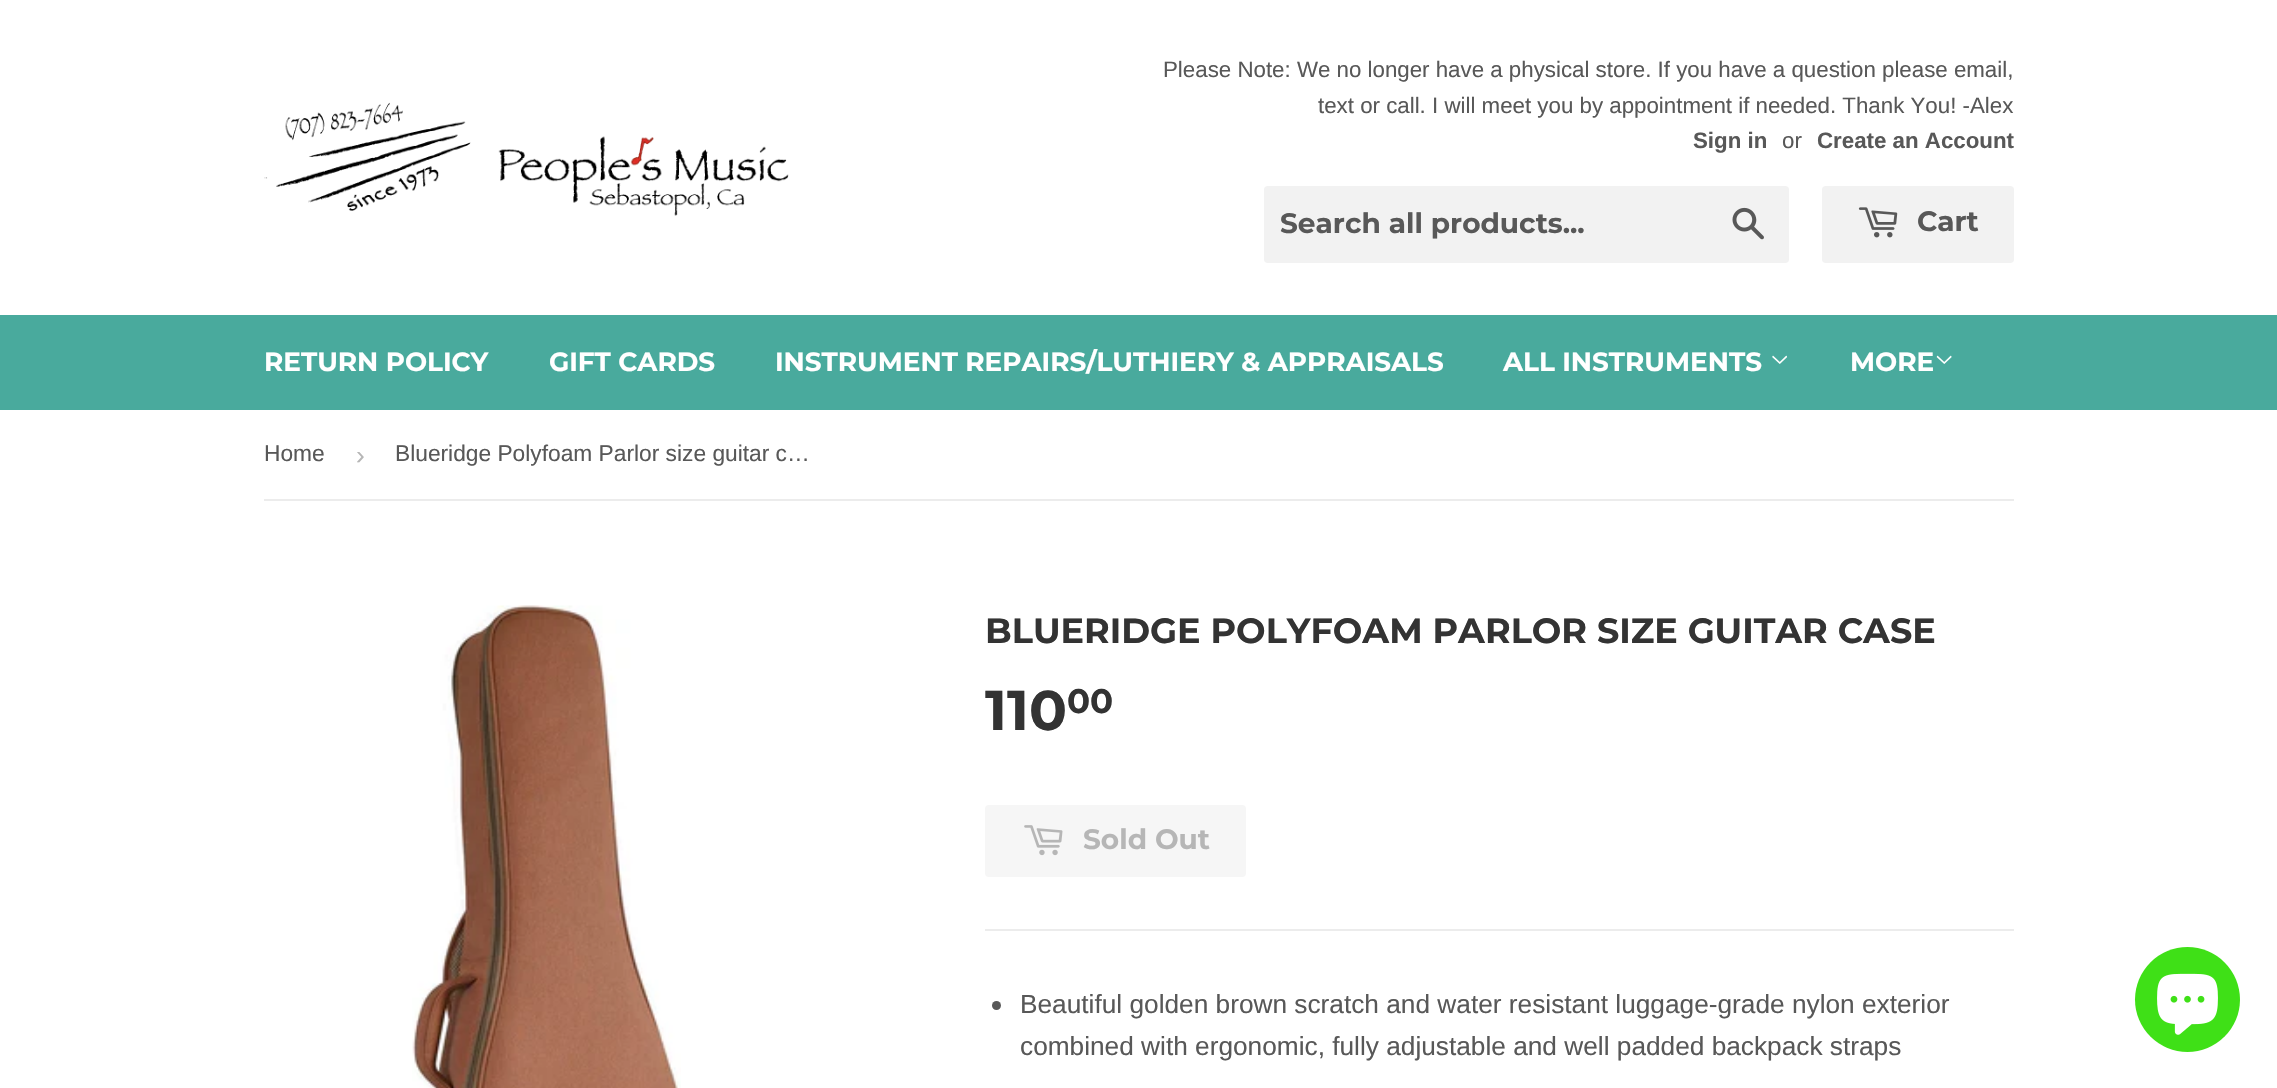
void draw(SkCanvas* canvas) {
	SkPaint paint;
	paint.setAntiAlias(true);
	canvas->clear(0xffffffff);
	canvas->drawImageRect(SkImages::DeferredFromEncodedData(SkData::MakeFromFileName("img1.png")), SkRect::MakeXYWH(264, 102, 525, 114), SkSamplingOptions());
	SkFont f1(fontMgr->matchFamilyStyle("Liberation Sans", SkFontStyle::Normal()), 22.3);
	f1.setSubpixel(true);
	paint.setColor(0xff585858);
	canvas->drawString("Please Note: We no longer have a physical store. If you have a question please email,", 1163, 77, f1, paint);
	canvas->drawString("text or call. I will meet you by appointment if needed. Thank You! -Alex", 1318, 113, f1, paint);
	SkFont f2(fontMgr->matchFamilyStyle("Liberation Sans", SkFontStyle::Bold()), 22.3);
	f2.setSubpixel(true);
	canvas->drawString("Sign in", 1693, 148, f2, paint);
	canvas->drawString("or", 1782, 148, f1, paint);
	canvas->drawString("Create an Account", 1817, 148, f2, paint);
	paint.setColor(0xfff2f2f2);
	canvas->drawRoundRect(SkRect::MakeXYWH(1264, 186, 525, 77), 4, 4, paint);
	SkFont f3(fontMgr->matchFamilyStyle("Montserrat", SkFontStyle(100, SkFontStyle::kNormal_Width, SkFontStyle::kUpright_Slant)), 28);
	f3.setSubpixel(true);
	paint.setColor(0xff585858);
	canvas->drawString("Search all products...", 1280, 233, f3, paint);
	canvas->drawImageRect(SkImages::DeferredFromEncodedData(SkData::MakeFromFileName("img2.png")), SkRect::MakeXYWH(1732, 207, 32, 33), SkSamplingOptions());
	paint.setColor(0xfff2f2f2);
	canvas->drawRoundRect(SkRect::MakeXYWH(1822, 186, 192, 77), 4, 4, paint);
	canvas->drawImageRect(SkImages::DeferredFromEncodedData(SkData::MakeFromFileName("img3.png")), SkRect::MakeXYWH(1858, 207, 40, 31), SkSamplingOptions());
	paint.setColor(0xff585858);
	canvas->drawString("Cart", 1917, 231, f3, paint);
	paint.setColor(0xff49aa9d);
	canvas->drawRect(SkRect::MakeXYWH(0, 315, 2277, 95), paint);
	SkFont f4(fontMgr->matchFamilyStyle("Montserrat", SkFontStyle(100, SkFontStyle::kNormal_Width, SkFontStyle::kUpright_Slant)), 26.25);
	f4.setSubpixel(true);
	paint.setColor(0xffffffff);
	canvas->drawString("RETURN POLICY", 264, 371, f4, paint);
	canvas->drawString("GIFT CARDS", 549, 371, f4, paint);
	canvas->drawString("INSTRUMENT REPAIRS/LUTHIERY & APPRAISALS", 775, 371, f4, paint);
	canvas->drawString("ALL INSTRUMENTS", 1503, 371, f4, paint);
	canvas->drawImageRect(SkImages::DeferredFromEncodedData(SkData::MakeFromFileName("img4.png")), SkRect::MakeXYWH(1772, 355, 15, 9), SkSamplingOptions());
	canvas->drawString("MORE", 1850, 371, f4, paint);
	canvas->drawImageRect(SkImages::DeferredFromEncodedData(SkData::MakeFromFileName("img5.png")), SkRect::MakeXYWH(1936, 355, 16, 9), SkSamplingOptions());
	paint.setColor(0xffececec);
	canvas->drawRect(SkRect::MakeXYWH(264, 499, 1750, 2), paint);
	SkFont f5(fontMgr->matchFamilyStyle("Liberation Sans", SkFontStyle::Normal()), 22.75);
	f5.setSubpixel(true);
	paint.setColor(0xff585858);
	canvas->drawString("Home", 264, 461, f5, paint);
	SkFont f6(fontMgr->matchFamilyStyle("Liberation Sans", SkFontStyle::Normal()), 26.25);
	f6.setSubpixel(true);
	paint.setColor(0xffb6b6b6);
	canvas->drawString("›", 356, 464, f6, paint);
	paint.setColor(0xff585858);
	canvas->drawString("Blueridge Polyfoam Parlor size guitar c…", 395, 461, f5, paint);
	canvas->drawImageRect(SkImages::DeferredFromEncodedData(SkData::MakeFromFileName("img6.png")), SkRect::MakeXYWH(412, 605, 269, 483), SkSamplingOptions());
	SkFont f7(fontMgr->matchFamilyStyle("Montserrat", SkFontStyle(100, SkFontStyle::kNormal_Width, SkFontStyle::kUpright_Slant)), 35);
	f7.setSubpixel(true);
	paint.setColor(0xff333333);
	canvas->drawString("BLUERIDGE POLYFOAM PARLOR SIZE GUITAR CASE", 985, 643, f7, paint);
	SkFont f8(fontMgr->matchFamilyStyle("Montserrat", SkFontStyle(100, SkFontStyle::kNormal_Width, SkFontStyle::kUpright_Slant)), 56);
	f8.setSubpixel(true);
	canvas->drawString("110", 985, 730, f8, paint);
	SkFont f9(fontMgr->matchFamilyStyle("Montserrat", SkFontStyle(100, SkFontStyle::kNormal_Width, SkFontStyle::kUpright_Slant)), 34);
	f9.setSubpixel(true);
	canvas->drawString("00", 1067, 713, f9, paint);
	paint.setColor(0xfff6f6f6);
	canvas->drawRoundRect(SkRect::MakeXYWH(985, 805, 261, 72), 4, 4, paint);
	canvas->drawImageRect(SkImages::DeferredFromEncodedData(SkData::MakeFromFileName("img7.png")), SkRect::MakeXYWH(1024, 825, 39, 31), SkSamplingOptions());
	paint.setColor(0xffb6b6b6);
	canvas->drawString("Sold Out", 1083, 849, f3, paint);
	paint.setColor(0xffececec);
	canvas->drawRect(SkRect::MakeXYWH(985, 929, 1029, 2), paint);
	paint.setColor(0xff585858);
	canvas->drawCircle(996.5, 1005.5, 4.5, paint);
	canvas->drawString("Beautiful golden brown scratch and water resistant luggage-grade nylon exterior", 1020, 1013, f6, paint);
	canvas->drawString("combined with ergonomic, fully adjustable and well padded backpack straps", 1020, 1055, f6, paint);
	paint.setColor(0xff3fe017);
	canvas->drawCircle(2187.5, 999.5, 52.5, paint);
	canvas->drawImageRect(SkImages::DeferredFromEncodedData(SkData::MakeFromFileName("img8.png")), SkRect::MakeXYWH(2157, 973, 61, 62), SkSamplingOptions());
}
